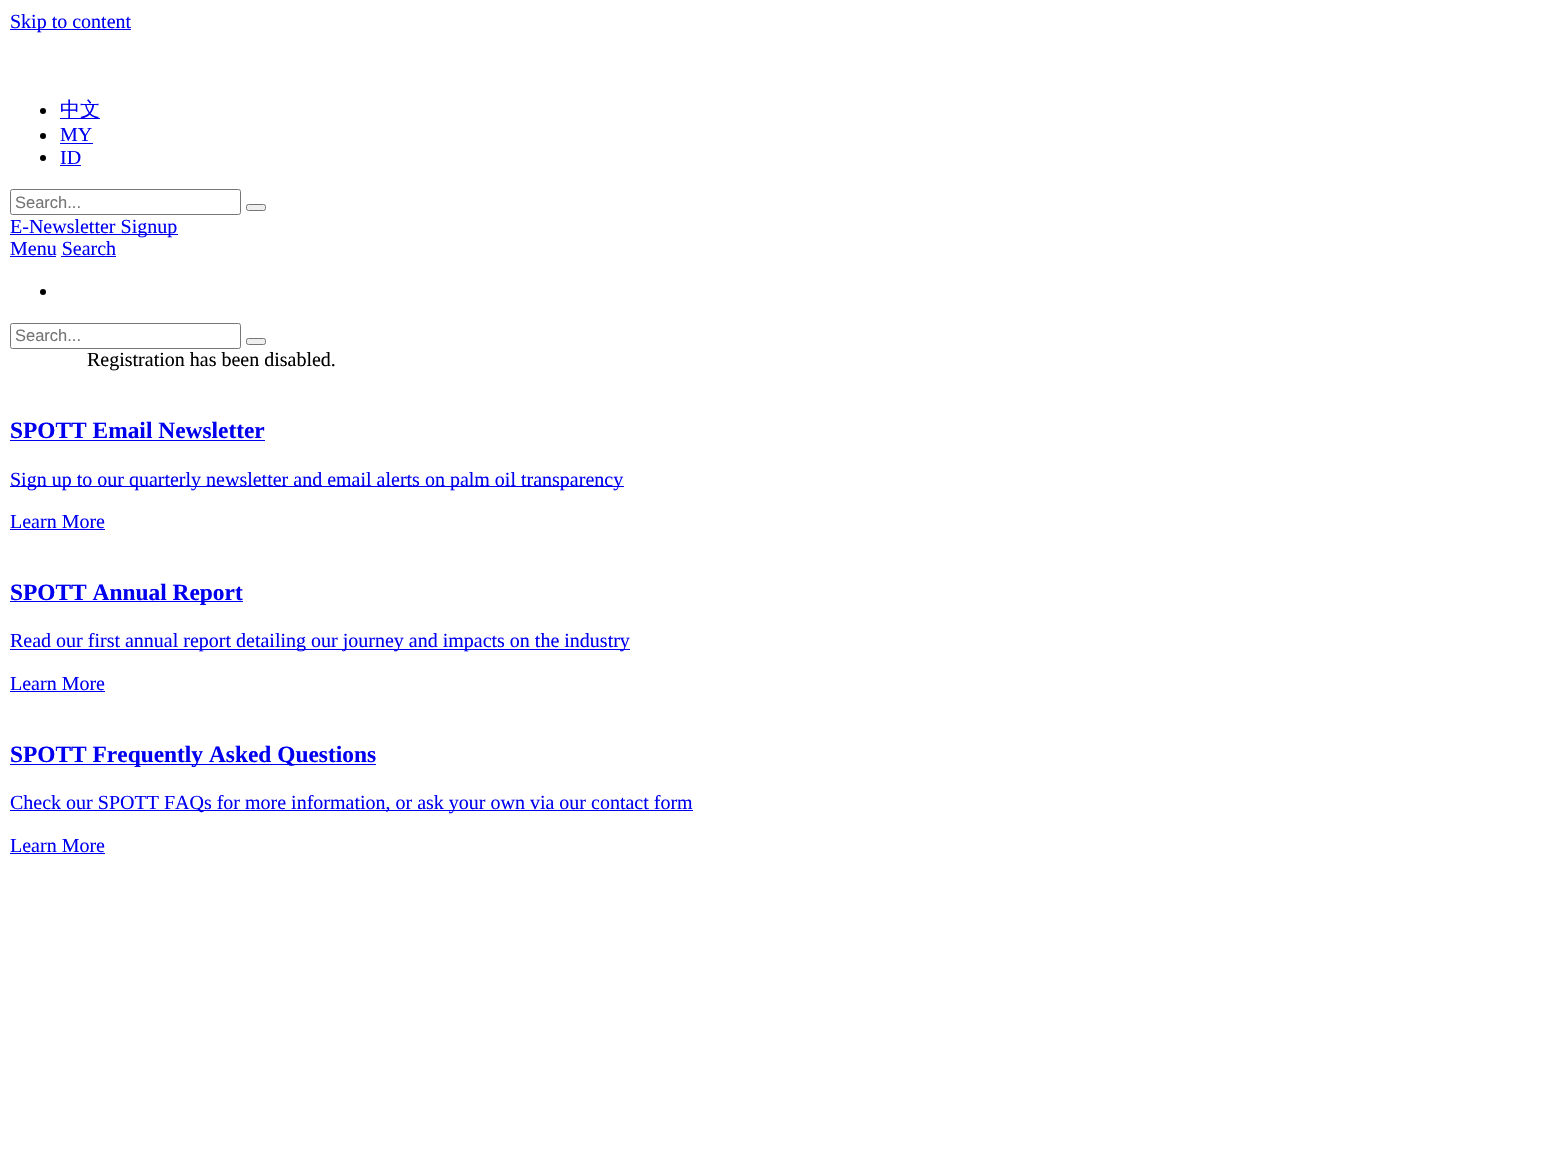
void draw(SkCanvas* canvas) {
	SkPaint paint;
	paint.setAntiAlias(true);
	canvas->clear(0xffffffff);
	paint.setColor(0xff0000ee);
	canvas->drawRect(SkRect::MakeXYWH(10, 29, 121, 1), paint);
	SkFont f1(fontMgr->matchFamilyStyle("Liberation Serif", SkFontStyle::Normal()), 20);
	f1.setSubpixel(true);
	canvas->drawString("Skip to content", 10, 28, f1, paint);
	paint.setColor(0xff000000);
	canvas->drawCircle(43, 111, 3, paint);
	paint.setColor(0xff0000ee);
	canvas->drawRect(SkRect::MakeXYWH(60, 118, 40, 1), paint);
	SkFont f2(fontMgr->matchFamilyStyle("WenQuanYi Zen Hei", SkFontStyle(500, SkFontStyle::kNormal_Width, SkFontStyle::kUpright_Slant)), 20);
	f2.setSubpixel(true);
	canvas->drawString("中文", 60, 116, f2, paint);
	paint.setColor(0xff000000);
	canvas->drawCircle(43, 136, 3, paint);
	paint.setColor(0xff0000ee);
	canvas->drawString("MY", 60, 141, f1, paint);
	canvas->drawRect(SkRect::MakeXYWH(60, 143, 33, 1), paint);
	paint.setColor(0xff000000);
	canvas->drawCircle(43, 158, 3, paint);
	paint.setColor(0xff0000ee);
	canvas->drawString("ID", 60, 164, f1, paint);
	canvas->drawRect(SkRect::MakeXYWH(60, 165, 21, 1), paint);
	paint.setStroke(true);
	paint.setStrokeWidth(1);
	paint.setColor(0xff767676);
	canvas->drawRoundRect(SkRect::MakeXYWH(10.5, 189.5, 230, 25), 2, 2, paint);
	SkFont f3(fontMgr->matchFamilyStyle("Liberation Sans", SkFontStyle::Normal()), 16.5);
	f3.setSubpixel(true);
	paint.setStroke(false);
	paint.setColor(0xff757575);
	canvas->drawString("Search...", 15, 208, f3, paint);
	paint.setColor(0xffefefef);
	canvas->drawRoundRect(SkRect::MakeXYWH(246.5, 204.5, 19, 6), 2, 2, paint);
	paint.setStroke(true);
	paint.setColor(0xff767676);
	canvas->drawRoundRect(SkRect::MakeXYWH(246.5, 204.5, 19, 6), 2, 2, paint);
	paint.setStroke(false);
	paint.setColor(0xff0000ee);
	canvas->drawRect(SkRect::MakeXYWH(10, 234, 168, 1), paint);
	canvas->drawString("E-Newsletter Signup", 10, 233, f1, paint);
	canvas->drawString("Menu Search", 10, 255, f1, paint);
	canvas->drawRect(SkRect::MakeXYWH(10, 256, 46, 1), paint);
	canvas->drawRect(SkRect::MakeXYWH(61, 256, 55, 1), paint);
	paint.setColor(0xff000000);
	canvas->drawCircle(43, 292, 3, paint);
	paint.setStroke(true);
	paint.setColor(0xff767676);
	canvas->drawRoundRect(SkRect::MakeXYWH(10.5, 323.5, 230, 25), 2, 2, paint);
	paint.setStroke(false);
	paint.setColor(0xff757575);
	canvas->drawString("Search...", 15, 341, f3, paint);
	paint.setColor(0xffefefef);
	canvas->drawRoundRect(SkRect::MakeXYWH(246.5, 338.5, 19, 6), 2, 2, paint);
	paint.setStroke(true);
	paint.setColor(0xff767676);
	canvas->drawRoundRect(SkRect::MakeXYWH(246.5, 338.5, 19, 6), 2, 2, paint);
	paint.setStroke(false);
	paint.setColor(0xff000000);
	canvas->drawString("Registration has been disabled.", 87, 366, f1, paint);
	SkFont f4(fontMgr->matchFamilyStyle("Liberation Serif", SkFontStyle::Bold()), 23.4);
	f4.setSubpixel(true);
	paint.setColor(0xff0000ee);
	canvas->drawString("SPOTT Email Newsletter", 10, 438, f4, paint);
	canvas->drawRect(SkRect::MakeXYWH(10, 440, 255, 1), paint);
	canvas->drawRect(SkRect::MakeXYWH(10, 486, 614, 1), paint);
	canvas->drawString("Sign up to our quarterly newsletter and email alerts on palm oil transparency", 10, 486, f1, paint);
	canvas->drawString("Learn More", 10, 528, f1, paint);
	canvas->drawRect(SkRect::MakeXYWH(10, 529, 95, 1), paint);
	canvas->drawRect(SkRect::MakeXYWH(10, 601, 233, 1), paint);
	canvas->drawString("SPOTT Annual Report", 10, 600, f4, paint);
	canvas->drawRect(SkRect::MakeXYWH(10, 649, 620, 1), paint);
	canvas->drawString("Read our first annual report detailing our journey and impacts on the industry", 10, 647, f1, paint);
	canvas->drawString("Learn More", 10, 690, f1, paint);
	canvas->drawRect(SkRect::MakeXYWH(10, 691, 95, 1), paint);
	canvas->drawRect(SkRect::MakeXYWH(10, 764, 366, 1), paint);
	canvas->drawString("SPOTT Frequently Asked Questions", 10, 762, f4, paint);
	canvas->drawRect(SkRect::MakeXYWH(10, 810, 683, 1), paint);
	canvas->drawString("Check our SPOTT FAQs for more information, or ask your own via our contact form", 10, 809, f1, paint);
	canvas->drawString("Learn More", 10, 852, f1, paint);
	canvas->drawRect(SkRect::MakeXYWH(10, 853, 95, 1), paint);
}
